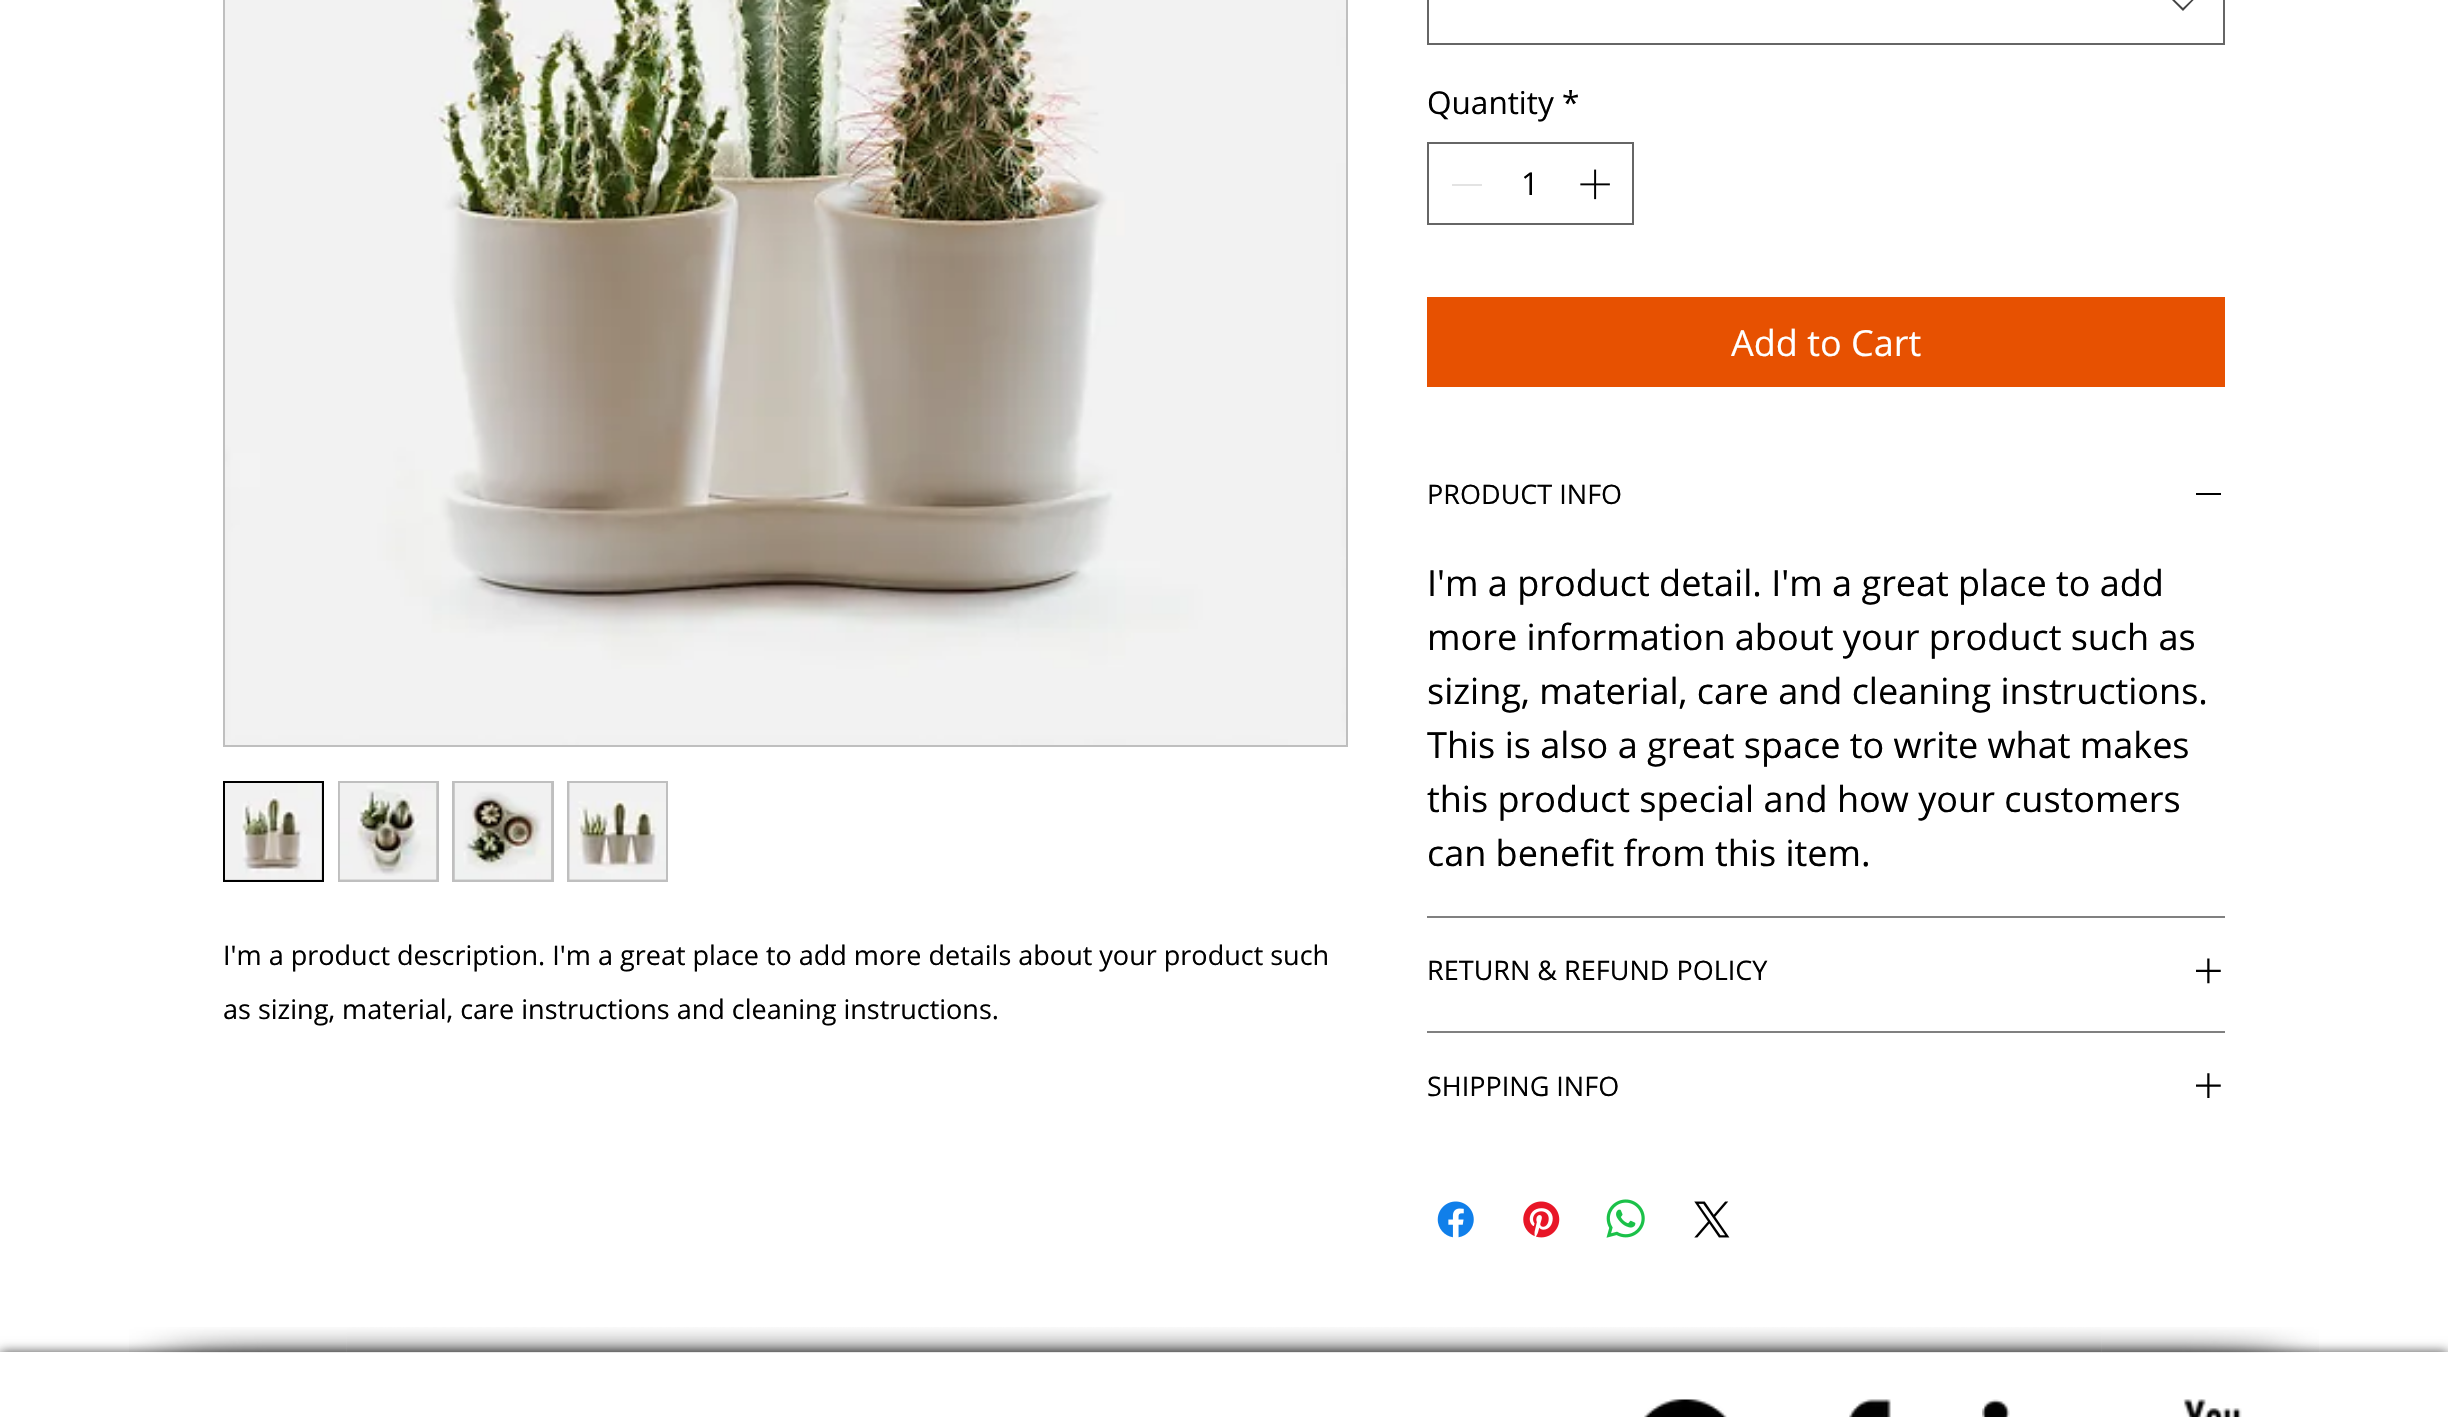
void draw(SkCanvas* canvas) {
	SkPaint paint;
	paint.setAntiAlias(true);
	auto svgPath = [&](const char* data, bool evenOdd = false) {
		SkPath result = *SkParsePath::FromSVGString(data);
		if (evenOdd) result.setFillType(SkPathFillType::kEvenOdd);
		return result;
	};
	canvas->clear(0xffffffff);
	paint.setStroke(true);
	paint.setStrokeWidth(2);
	paint.setColor(0xffbfbfbf);
	canvas->drawRect(SkRect::MakeXYWH(224, -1, 1123, 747), paint);
	canvas->drawImageRect(SkImages::DeferredFromEncodedData(SkData::MakeFromFileName("img1.png")), SkRect::MakeXYWH(225, 0, 1121, 745), SkSamplingOptions());
	paint.setStroke(false);
	canvas->drawRect(SkRect::MakeXYWH(224, 782, 99, 99), paint);
	paint.setStroke(true);
	paint.setColor(0xff000000);
	canvas->drawRect(SkRect::MakeXYWH(224, 782, 99, 99), paint);
	canvas->drawImageRect(SkImages::DeferredFromEncodedData(SkData::MakeFromFileName("img2.png")), SkRect::MakeXYWH(225, 783, 97, 97), SkSamplingOptions());
	paint.setStroke(false);
	paint.setColor(0xffbfbfbf);
	canvas->drawRect(SkRect::MakeXYWH(338, 781, 101, 101), paint);
	canvas->drawImageRect(SkImages::DeferredFromEncodedData(SkData::MakeFromFileName("img3.png")), SkRect::MakeXYWH(339, 783, 98, 97), SkSamplingOptions());
	canvas->drawRect(SkRect::MakeXYWH(452, 781, 102, 101), paint);
	canvas->drawImageRect(SkImages::DeferredFromEncodedData(SkData::MakeFromFileName("img4.png")), SkRect::MakeXYWH(454, 783, 98, 97), SkSamplingOptions());
	canvas->drawRect(SkRect::MakeXYWH(567, 781, 101, 101), paint);
	canvas->drawImageRect(SkImages::DeferredFromEncodedData(SkData::MakeFromFileName("img5.png")), SkRect::MakeXYWH(569, 783, 97, 97), SkSamplingOptions());
	SkFont f1(fontMgr->matchFamilyStyle("Open Sans", SkFontStyle::Normal()), 27);
	f1.setSubpixel(true);
	paint.setColor(0xff000000);
	canvas->drawString("I'm a product description. I'm a great place to add more details about your product such", 223, 965, f1, paint);
	canvas->drawString("as sizing, material, care instructions and cleaning instructions.", 223, 1019, f1, paint);
	paint.setStroke(true);
	paint.setColor(0xff666666);
	canvas->drawRect(SkRect::MakeXYWH(1428, -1, 796, 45), paint);
	paint.setStroke(false);
	paint.setColor(0xff444444);
	canvas->drawPath(svgPath("M2196.5-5L2197.5-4L2183 11L2168-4L2169.5-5L2183 8Z", true), paint);
	SkFont f2(fontMgr->matchFamilyStyle("Open Sans", SkFontStyle::Normal()), 31.5);
	f2.setSubpixel(true);
	paint.setColor(0xff000000);
	canvas->drawString("Quantity", 1427, 114, f2, paint);
	canvas->drawString("*", 1562, 114, f2, paint);
	paint.setStroke(true);
	paint.setColor(0xff666666);
	canvas->drawRect(SkRect::MakeXYWH(1428, 143, 205, 81), paint);
	paint.setStroke(false);
	paint.setColor(0xffe3e3e3);
	canvas->drawRect(SkRect::MakeXYWH(1452, 184, 30, 2), paint);
	paint.setColor(0xff000000);
	canvas->drawString("1", 1521, 195, f2, paint);
	canvas->drawImageRect(SkImages::DeferredFromEncodedData(SkData::MakeFromFileName("img6.png")), SkRect::MakeXYWH(1580, 169, 30, 31), SkSamplingOptions());
	paint.setColor(0xffe75101);
	canvas->drawRect(SkRect::MakeXYWH(1427, 297, 798, 90), paint);
	SkFont f3(fontMgr->matchFamilyStyle("Open Sans", SkFontStyle::Normal()), 36);
	f3.setSubpixel(true);
	paint.setColor(0xffffffff);
	canvas->drawString("Add to Cart", 1731, 356, f3, paint);
	paint.setColor(0xff808080);
	canvas->drawRect(SkRect::MakeXYWH(1427, 916, 798, 2), paint);
	paint.setColor(0xff000000);
	canvas->drawString("PRODUCT INFO", 1427, 504, f1, paint);
	canvas->drawRect(SkRect::MakeXYWH(2196, 493, 25, 2), paint);
	canvas->drawString("I'm a product detail. I'm a great place to add", 1427, 596, f3, paint);
	canvas->drawString("more information about your product such as", 1427, 650, f3, paint);
	canvas->drawString("sizing, material, care and cleaning instructions.", 1427, 704, f3, paint);
	canvas->drawString("This is also a great space to write what makes", 1427, 758, f3, paint);
	canvas->drawString("this product special and how your customers", 1427, 812, f3, paint);
	canvas->drawString("can benefit from this item.", 1427, 866, f3, paint);
	paint.setColor(0xff808080);
	canvas->drawRect(SkRect::MakeXYWH(1427, 1031, 798, 2), paint);
	paint.setColor(0xff000000);
	canvas->drawString("RETURN & REFUND POLICY", 1427, 980, f1, paint);
	canvas->drawImageRect(SkImages::DeferredFromEncodedData(SkData::MakeFromFileName("img7.png")), SkRect::MakeXYWH(2196, 958, 25, 26), SkSamplingOptions());
	canvas->drawString("SHIPPING INFO", 1427, 1096, f1, paint);
	canvas->drawImageRect(SkImages::DeferredFromEncodedData(SkData::MakeFromFileName("img8.png")), SkRect::MakeXYWH(2196, 1073, 25, 25), SkSamplingOptions());
	canvas->drawImageRect(SkImages::DeferredFromEncodedData(SkData::MakeFromFileName("img9.png")), SkRect::MakeXYWH(1437, 1201, 37, 37), SkSamplingOptions());
	canvas->drawImageRect(SkImages::DeferredFromEncodedData(SkData::MakeFromFileName("img10.png")), SkRect::MakeXYWH(1523, 1201, 37, 37), SkSamplingOptions());
	canvas->drawImageRect(SkImages::DeferredFromEncodedData(SkData::MakeFromFileName("img11.png")), SkRect::MakeXYWH(1606, 1199, 39, 39), SkSamplingOptions());
	canvas->drawImageRect(SkImages::DeferredFromEncodedData(SkData::MakeFromFileName("img12.png")), SkRect::MakeXYWH(1694, 1201, 36, 37), SkSamplingOptions());
	paint.setColor(0xb3000000);
	paint.setMaskFilter(SkMaskFilter::MakeBlur(kNormal_SkBlurStyle, 5.5));
	canvas->drawRect(SkRect::MakeXYWH(0, 1352, 2448, 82), paint);
	paint.setMaskFilter(nullptr);
	paint.setColor(0xffffffff);
	canvas->drawRect(SkRect::MakeXYWH(0, 1352, 2448, 65), paint);
	canvas->drawImageRect(SkImages::DeferredFromEncodedData(SkData::MakeFromFileName("img13.png")), SkRect::MakeXYWH(129, 1327, 218, 26), SkSamplingOptions());
	canvas->drawImageRect(SkImages::DeferredFromEncodedData(SkData::MakeFromFileName("img14.png")), SkRect::MakeXYWH(346, 1327, 1756, 26), SkSamplingOptions());
	canvas->drawImageRect(SkImages::DeferredFromEncodedData(SkData::MakeFromFileName("img15.png")), SkRect::MakeXYWH(2101, 1327, 218, 26), SkSamplingOptions());
	canvas->drawImageRect(SkImages::DeferredFromEncodedData(SkData::MakeFromFileName("img16.png")), SkRect::MakeXYWH(1644, 1399, 83, 18), SkSamplingOptions());
	canvas->drawImageRect(SkImages::DeferredFromEncodedData(SkData::MakeFromFileName("img17.png")), SkRect::MakeXYWH(1849, 1399, 42, 18), SkSamplingOptions());
	canvas->drawImageRect(SkImages::DeferredFromEncodedData(SkData::MakeFromFileName("img18.png")), SkRect::MakeXYWH(1982, 1399, 28, 18), SkSamplingOptions());
	canvas->drawImageRect(SkImages::DeferredFromEncodedData(SkData::MakeFromFileName("img19.png")), SkRect::MakeXYWH(2183, 1399, 59, 18), SkSamplingOptions());
}
